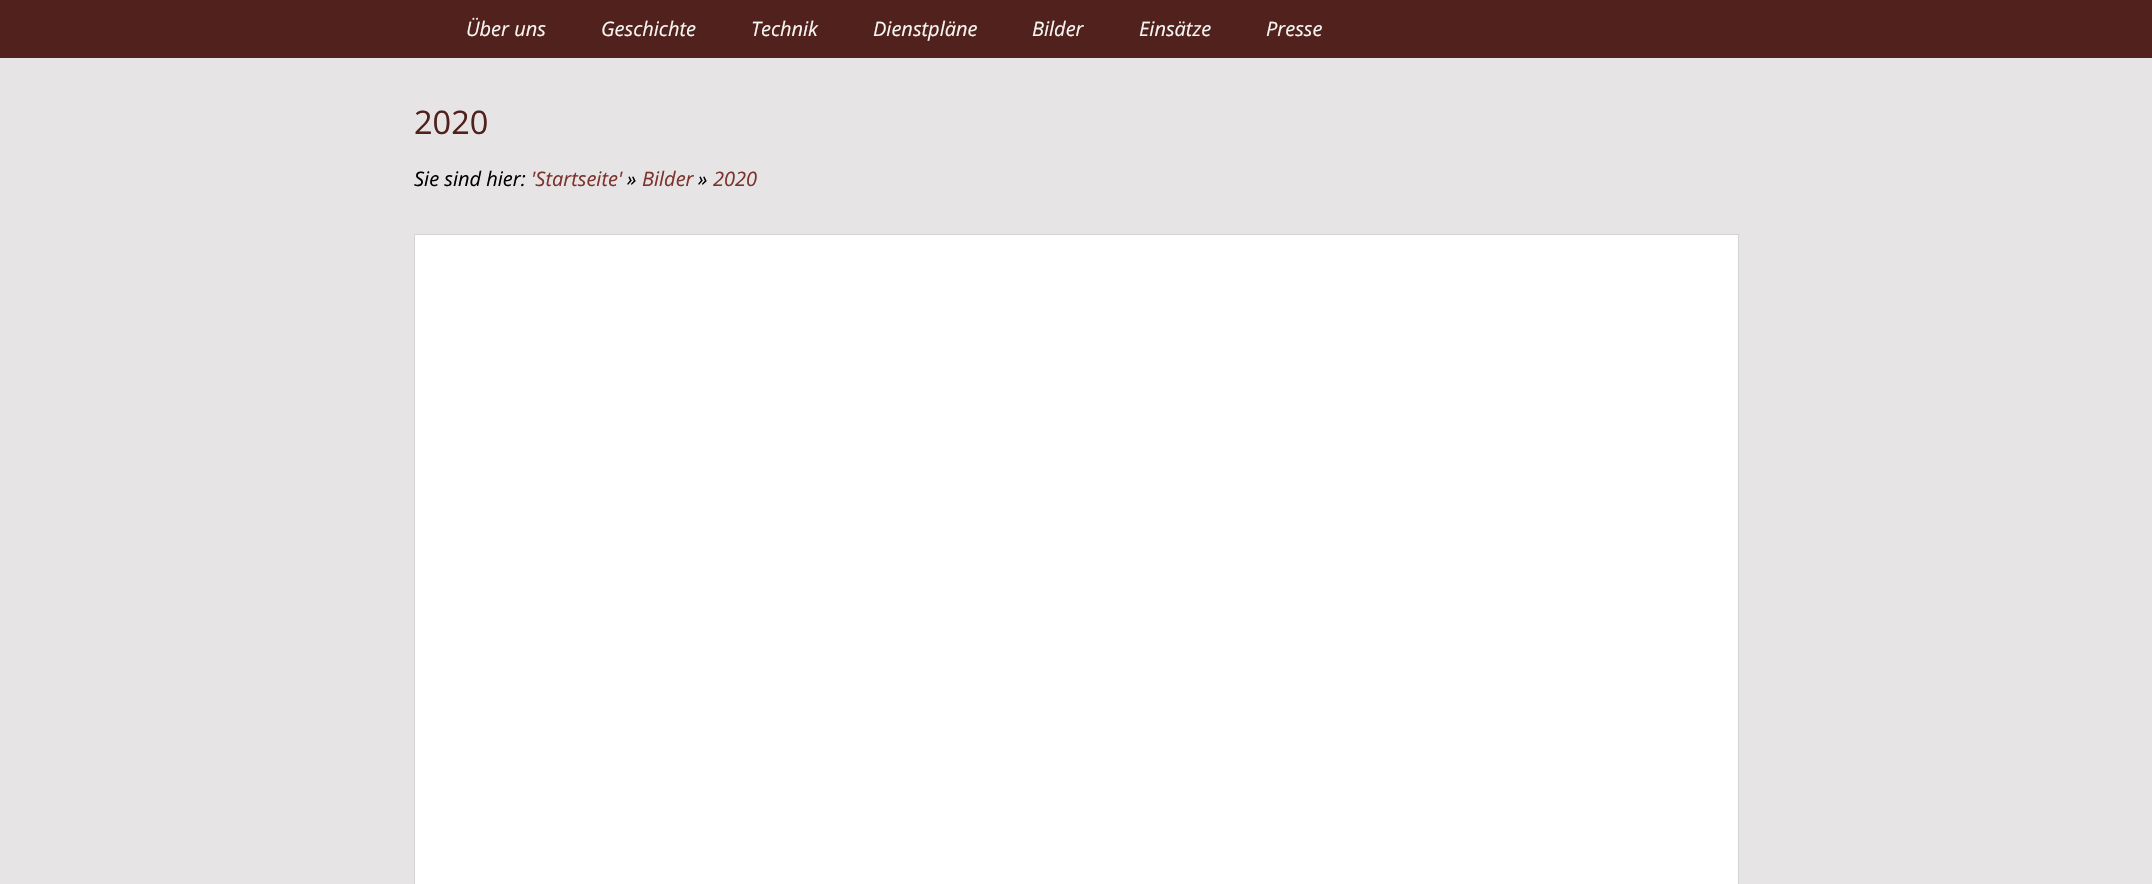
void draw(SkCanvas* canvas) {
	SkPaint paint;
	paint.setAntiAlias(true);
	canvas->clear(0xff50211d);
	SkFont f1(fontMgr->matchFamilyStyle("Open Sans", SkFontStyle::Italic()), 20);
	f1.setSubpixel(true);
	paint.setColor(0xfff7f6f2);
	canvas->drawString("Über uns", 466, 36, f1, paint);
	canvas->drawString("Geschichte", 601, 36, f1, paint);
	canvas->drawString("Technik", 751, 36, f1, paint);
	canvas->drawString("Dienstpläne", 873, 36, f1, paint);
	canvas->drawString("Bilder", 1032, 36, f1, paint);
	canvas->drawString("Einsätze", 1139, 36, f1, paint);
	canvas->drawString("Presse", 1266, 36, f1, paint);
	paint.setColor(0xffe6e4e4);
	canvas->drawRect(SkRect::MakeXYWH(0, 58, 2152, 826), paint);
	SkFont f2(fontMgr->matchFamilyStyle("Open Sans", SkFontStyle::Normal()), 32.5);
	f2.setSubpixel(true);
	paint.setColor(0xff50211d);
	canvas->drawString("2020", 414, 134, f2, paint);
	paint.setColor(0xff000000);
	canvas->drawString("Sie sind hier:", 414, 186, f1, paint);
	paint.setColor(0xff7c332d);
	canvas->drawString("'Startseite'", 531, 186, f1, paint);
	paint.setColor(0xff000000);
	canvas->drawString("»", 627, 186, f1, paint);
	paint.setColor(0xff7c332d);
	canvas->drawString("Bilder", 642, 186, f1, paint);
	paint.setColor(0xff000000);
	canvas->drawString("»", 698, 186, f1, paint);
	paint.setColor(0xff7c332d);
	canvas->drawString("2020", 713, 186, f1, paint);
	paint.setColor(0xffffffff);
	canvas->drawRect(SkRect::MakeXYWH(414.5, 234.5, 1324, 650), paint);
	paint.setStroke(true);
	paint.setStrokeWidth(1);
	paint.setColor(0xffd3d3d3);
	canvas->drawRect(SkRect::MakeXYWH(414.5, 234.5, 1324, 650), paint);
}
